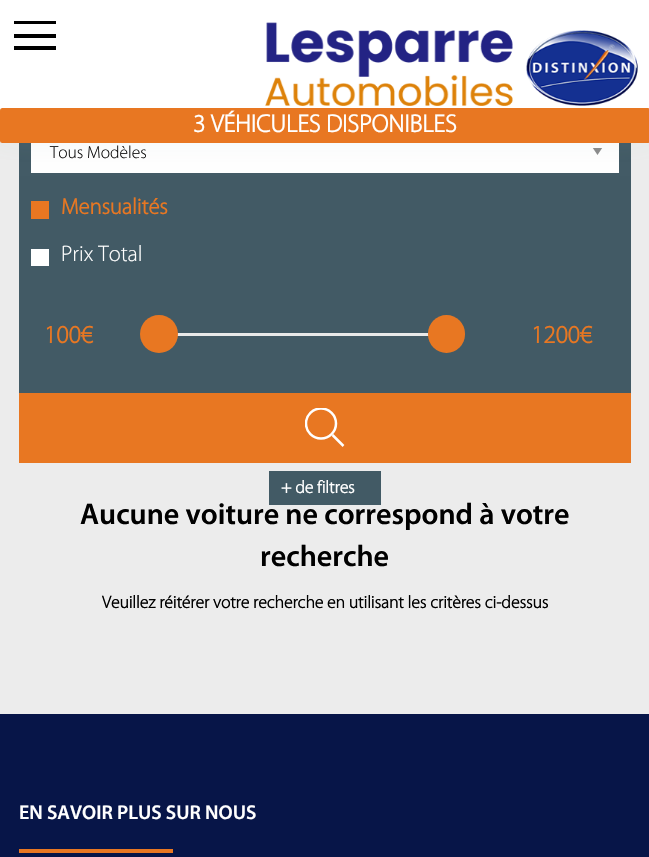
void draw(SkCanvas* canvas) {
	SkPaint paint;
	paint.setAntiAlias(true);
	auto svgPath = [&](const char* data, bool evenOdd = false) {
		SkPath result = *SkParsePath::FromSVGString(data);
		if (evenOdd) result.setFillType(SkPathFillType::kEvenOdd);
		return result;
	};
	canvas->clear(0xffececec);
	paint.setColor(0xff425a65);
	canvas->drawRect(SkRect::MakeXYWH(19, 143, 612, 250), paint);
	paint.setColor(0xfffefefe);
	canvas->drawRect(SkRect::MakeXYWH(31, 143, 588, 30), paint);
	canvas->save();
	canvas->clipRect(SkRect::MakeXYWH(566, 148, 53, 7));
	paint.setColor(0xff8a8a8a);
	canvas->drawPath(svgPath("M592.5 147.5H602.5L597.5 155Z"), paint);
	canvas->restore();
	paint.setColor(0x707bafa6);
	paint.setMaskFilter(SkMaskFilter::MakeBlur(kNormal_SkBlurStyle, 19));
	canvas->drawRect(SkRect::MakeXYWH(0, 0, 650, 119), paint);
	paint.setMaskFilter(nullptr);
	paint.setColor(0xffffffff);
	canvas->drawRect(SkRect::MakeXYWH(0, 0, 649, 111), paint);
	paint.setColor(0xff000000);
	canvas->drawRect(SkRect::MakeXYWH(14, 21, 42, 3), paint);
	canvas->drawRect(SkRect::MakeXYWH(14, 34, 42, 4), paint);
	canvas->drawRect(SkRect::MakeXYWH(14, 46, 42, 4), paint);
	canvas->drawImageRect(SkImages::DeferredFromEncodedData(SkData::MakeFromFileName("img1.png")), SkRect::MakeXYWH(265, 22, 373, 84), SkSamplingOptions());
	paint.setColor(0xffe87722);
	canvas->drawRoundRect(SkRect::MakeXYWH(0, 108, 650, 35), 2.5, 2.5, paint);
	SkFont f1(fontMgr->matchFamilyStyle("Myriad", SkFontStyle::Bold()), 25);
	f1.setSubpixel(true);
	paint.setColor(0xffffffff);
	canvas->drawString("3 VÉHICULES DISPONIBLES", 193, 132, f1, paint);
	SkFont f2(fontMgr->matchFamilyStyle("Myriad", SkFontStyle(300, SkFontStyle::kNormal_Width, SkFontStyle::kUpright_Slant)), 17.5);
	f2.setSubpixel(true);
	paint.setColor(0xff0a0a0a);
	canvas->drawString("Tous Modèles", 50, 158, f2, paint);
	paint.setColor(0xffe87722);
	canvas->drawRect(SkRect::MakeXYWH(31, 201, 18, 18), paint);
	SkFont f3(fontMgr->matchFamilyStyle("Myriad", SkFontStyle::Bold()), 22.5);
	f3.setSubpixel(true);
	canvas->drawString("Mensualités", 61, 214, f3, paint);
	paint.setColor(0xffffffff);
	canvas->drawRect(SkRect::MakeXYWH(31, 249, 18, 17), paint);
	SkFont f4(fontMgr->matchFamilyStyle("Myriad", SkFontStyle(300, SkFontStyle::kNormal_Width, SkFontStyle::kUpright_Slant)), 22.5);
	f4.setSubpixel(true);
	canvas->drawString("Prix Total", 61, 261, f4, paint);
	paint.setColor(0xffe87722);
	canvas->drawString("100€", 44, 343, f1, paint);
	paint.setColor(0xffe9e9e9);
	canvas->drawRect(SkRect::MakeXYWH(177, 333, 252, 3), paint);
	paint.setColor(0xffe87722);
	canvas->drawCircle(159, 334, 19, paint);
	canvas->drawRoundRect(SkRect::MakeXYWH(428, 315, 37, 38), 18.5, 18.5, paint);
	canvas->drawString("1200€", 531, 343, f1, paint);
	canvas->drawRect(SkRect::MakeXYWH(19, 393, 612, 70), paint);
	canvas->save();
	canvas->clipRect(SkRect::MakeXYWH(305, 408, 40, 40));
	paint.setStroke(true);
	paint.setStrokeWidth(2.5);
	paint.setColor(0xffffffff);
	canvas->drawCircle(321, 423.5, 15, paint);
	canvas->restore();
	paint.setStrokeJoin(SkPaint::kRound_Join);
	canvas->drawPath(svgPath("M332.5 435L343.5 446"), paint);
	SkFont f5(fontMgr->matchFamilyStyle("Myriad", SkFontStyle(600, SkFontStyle::kNormal_Width, SkFontStyle::kUpright_Slant)), 30);
	f5.setSubpixel(true);
	paint.setStroke(false);
	paint.setColor(0xff000000);
	canvas->drawString("Aucune voiture ne correspond à votre", 80, 524, f5, paint);
	paint.setColor(0xff425a65);
	canvas->drawRect(SkRect::MakeXYWH(269, 471, 112, 34), paint);
	SkFont f6(fontMgr->matchFamilyStyle("Myriad", SkFontStyle::Bold()), 17.5);
	f6.setSubpixel(true);
	paint.setColor(0xffffffff);
	canvas->drawString("+ de filtres", 281, 493, f6, paint);
	paint.setColor(0xff000000);
	canvas->drawString("recherche", 260, 566, f5, paint);
	canvas->drawString("Veuillez réitérer votre recherche en utilisant les critères ci-dessus", 102, 608, f6, paint);
	paint.setColor(0xff071548);
	canvas->drawRect(SkRect::MakeXYWH(0, 714, 649, 143), paint);
	SkFont f7(fontMgr->matchFamilyStyle("Myriad", SkFontStyle(600, SkFontStyle::kNormal_Width, SkFontStyle::kUpright_Slant)), 20);
	f7.setSubpixel(true);
	paint.setColor(0xffffffff);
	canvas->drawString("EN SAVOIR PLUS SUR NOUS", 19, 819, f7, paint);
	paint.setColor(0xffe87722);
	canvas->drawRect(SkRect::MakeXYWH(19, 849, 154, 4), paint);
}
